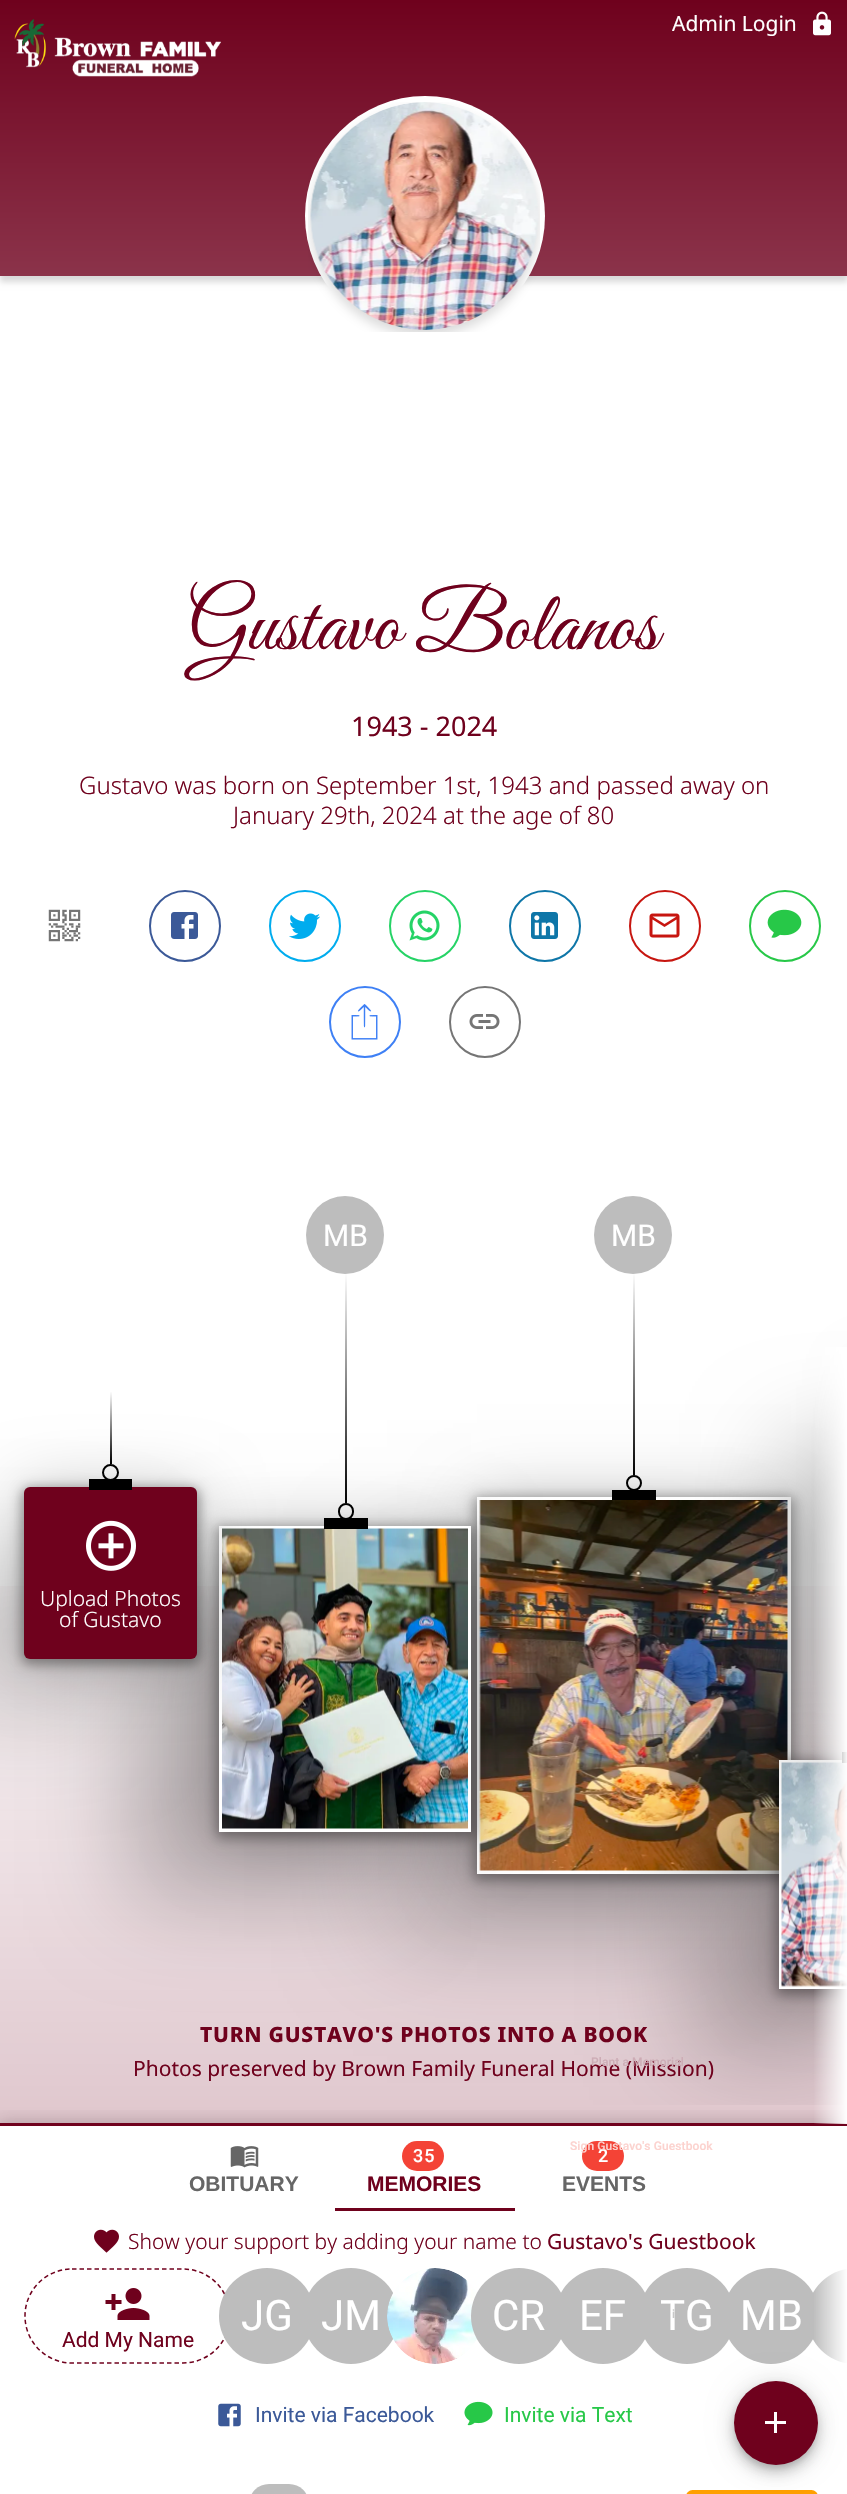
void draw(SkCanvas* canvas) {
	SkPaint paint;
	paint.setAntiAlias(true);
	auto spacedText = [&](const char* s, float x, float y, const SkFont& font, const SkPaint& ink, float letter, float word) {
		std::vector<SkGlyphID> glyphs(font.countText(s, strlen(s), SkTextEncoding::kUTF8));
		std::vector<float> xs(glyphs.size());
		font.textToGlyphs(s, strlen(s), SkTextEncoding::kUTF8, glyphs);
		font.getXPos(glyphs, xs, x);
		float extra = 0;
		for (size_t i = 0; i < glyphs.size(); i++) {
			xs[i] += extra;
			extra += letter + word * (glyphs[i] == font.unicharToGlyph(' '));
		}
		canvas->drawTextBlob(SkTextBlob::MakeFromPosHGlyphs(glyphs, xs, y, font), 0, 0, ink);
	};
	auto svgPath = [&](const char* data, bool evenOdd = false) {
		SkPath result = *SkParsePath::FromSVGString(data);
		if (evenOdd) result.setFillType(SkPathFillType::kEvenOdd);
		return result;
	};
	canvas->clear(0xffffffff);
	paint.setColor(0x26000000);
	paint.setMaskFilter(SkMaskFilter::MakeBlur(kNormal_SkBlurStyle, 3));
	canvas->drawRect(SkRect::MakeXYWH(0, 6, 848, 276), paint);
	paint.setMaskFilter(nullptr);
	{
		const SkColor colors[] = {0xff6f011d, 0xff8b334a};
		const float stops[] = {0, 1};
		const SkPoint ends[] = {{424, 0}, {424, 276}};
		paint.setShader(SkGradientShader::MakeLinear(ends, colors, stops, 2, SkTileMode::kClamp));
		paint.setAlpha(255);
	}
	canvas->drawRect(SkRect::MakeXYWH(0, 0, 847, 276), paint);
	paint.setShader(nullptr);
	paint.setColor(0xffffffff);
	canvas->drawCircle(425, 216, 120, paint);
	canvas->drawImageRect(SkImages::DeferredFromEncodedData(SkData::MakeFromFileName("img1.png")), SkRect::MakeXYWH(308, 102, 232, 230), SkSamplingOptions());
	canvas->drawImageRect(SkImages::DeferredFromEncodedData(SkData::MakeFromFileName("img2.png")), SkRect::MakeXYWH(14, 19, 207, 58), SkSamplingOptions());
	SkFont f1(fontMgr->matchFamilyStyle("Noto Sans", SkFontStyle::Normal()), 21);
	f1.setSubpixel(true);
	canvas->drawString("Admin Login", 672, 31, f1, paint);
	canvas->drawImageRect(SkImages::DeferredFromEncodedData(SkData::MakeFromFileName("img3.png")), SkRect::MakeXYWH(813, 11, 18, 25), SkSamplingOptions());
	SkFont f2(fontMgr->matchFamilyStyle("Great Vibes", SkFontStyle::Normal()), 84);
	f2.setSubpixel(true);
	paint.setColor(0xff6f011d);
	canvas->drawString("Gustavo Bolanos", 188, 649, f2, paint);
	SkFont f3(fontMgr->matchFamilyStyle("Noto Sans", SkFontStyle::Normal()), 27);
	f3.setSubpixel(true);
	canvas->drawString("1943 - 2024", 351, 736, f3, paint);
	SkFont f4(fontMgr->matchFamilyStyle("Noto Sans", SkFontStyle(300, SkFontStyle::kNormal_Width, SkFontStyle::kUpright_Slant)), 24);
	f4.setSubpixel(true);
	canvas->drawString("Gustavo was born on September 1st, 1943 and passed away on", 79, 794, f4, paint);
	canvas->drawString("January 29th, 2024 at the age of 80", 233, 824, f4, paint);
	canvas->drawImageRect(SkImages::DeferredFromEncodedData(SkData::MakeFromFileName("img4.png")), SkRect::MakeXYWH(48, 909, 33, 33), SkSamplingOptions());
	paint.setStroke(true);
	paint.setStrokeWidth(2);
	paint.setColor(0xff3b5998);
	canvas->drawCircle(185, 926, 35, paint);
	canvas->drawImageRect(SkImages::DeferredFromEncodedData(SkData::MakeFromFileName("img5.png")), SkRect::MakeXYWH(171, 912, 27, 27), SkSamplingOptions());
	paint.setColor(0xff00acee);
	canvas->drawCircle(305, 926, 35, paint);
	canvas->drawImageRect(SkImages::DeferredFromEncodedData(SkData::MakeFromFileName("img6.png")), SkRect::MakeXYWH(289, 913, 31, 26), SkSamplingOptions());
	paint.setColor(0xff25d366);
	canvas->drawCircle(425, 926, 35, paint);
	canvas->drawImageRect(SkImages::DeferredFromEncodedData(SkData::MakeFromFileName("img7.png")), SkRect::MakeXYWH(409, 910, 31, 31), SkSamplingOptions());
	paint.setColor(0xff0e76a8);
	canvas->drawCircle(545, 926, 35, paint);
	canvas->drawImageRect(SkImages::DeferredFromEncodedData(SkData::MakeFromFileName("img8.png")), SkRect::MakeXYWH(531, 912, 27, 27), SkSamplingOptions());
	paint.setColor(0xffc71610);
	canvas->drawCircle(665, 926, 35, paint);
	canvas->drawImageRect(SkImages::DeferredFromEncodedData(SkData::MakeFromFileName("img9.png")), SkRect::MakeXYWH(649, 913, 31, 25), SkSamplingOptions());
	paint.setColor(0xff27c848);
	canvas->drawCircle(785, 926, 35, paint);
	canvas->drawImageRect(SkImages::DeferredFromEncodedData(SkData::MakeFromFileName("img10.png")), SkRect::MakeXYWH(767, 909, 35, 29), SkSamplingOptions());
	paint.setColor(0xff3e80f5);
	canvas->drawCircle(365, 1022, 35, paint);
	canvas->drawImageRect(SkImages::DeferredFromEncodedData(SkData::MakeFromFileName("img11.png")), SkRect::MakeXYWH(351, 1004, 27, 36), SkSamplingOptions());
	paint.setColor(0xff757575);
	canvas->drawCircle(485, 1022, 35, paint);
	canvas->drawImageRect(SkImages::DeferredFromEncodedData(SkData::MakeFromFileName("img12.png")), SkRect::MakeXYWH(469, 1014, 31, 15), SkSamplingOptions());
	canvas->save();
	canvas->clipRect(SkRect::MakeXYWH(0, 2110, 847, 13));
	paint.setStroke(false);
	paint.setColor(0x40000000);
	paint.setMaskFilter(SkMaskFilter::MakeBlur(kNormal_SkBlurStyle, 9));
	canvas->drawRect(SkRect::MakeXYWH(-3, 2123, 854, 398), paint);
	paint.setMaskFilter(nullptr);
	canvas->restore();
	{
		const SkColor colors[] = {0x006f011d, 0x386f011d};
		const float stops[] = {0.4, 1};
		const SkPoint ends[] = {{424, 1130}, {424, 2123}};
		paint.setShader(SkGradientShader::MakeLinear(ends, colors, stops, 2, SkTileMode::kClamp));
		paint.setAlpha(255);
	}
	canvas->drawRect(SkRect::MakeXYWH(0, 1586, 847, 537), paint);
	paint.setShader(nullptr);
	paint.setColor(0xff6f011d);
	canvas->drawRect(SkRect::MakeXYWH(0, 2123, 847, 3), paint);
	paint.setColor(0x40000000);
	paint.setMaskFilter(SkMaskFilter::MakeBlur(kNormal_SkBlurStyle, 33));
	canvas->drawRect(SkRect::MakeXYWH(477, 1503, 314, 377), paint);
	paint.setMaskFilter(nullptr);
	paint.setMaskFilter(SkMaskFilter::MakeBlur(kNormal_SkBlurStyle, 48));
	canvas->drawRect(SkRect::MakeXYWH(387, 1563, 314, 377), paint);
	paint.setMaskFilter(nullptr);
	paint.setColor(0x59000000);
	paint.setMaskFilter(SkMaskFilter::MakeBlur(kNormal_SkBlurStyle, 6));
	canvas->drawRect(SkRect::MakeXYWH(474, 1497, 320, 383), paint);
	paint.setMaskFilter(nullptr);
	paint.setColor(0xffffffff);
	canvas->drawRect(SkRect::MakeXYWH(477, 1497, 314, 377), paint);
	canvas->drawImageRect(SkImages::DeferredFromEncodedData(SkData::MakeFromFileName("img14.png")), SkRect::MakeXYWH(479, 1500, 309, 371), SkSamplingOptions());
	paint.setColor(0x40000000);
	paint.setMaskFilter(SkMaskFilter::MakeBlur(kNormal_SkBlurStyle, 33));
	canvas->drawRect(SkRect::MakeXYWH(219, 1532, 252, 306), paint);
	paint.setMaskFilter(nullptr);
	paint.setMaskFilter(SkMaskFilter::MakeBlur(kNormal_SkBlurStyle, 48));
	canvas->drawRect(SkRect::MakeXYWH(129, 1592, 252, 306), paint);
	paint.setMaskFilter(nullptr);
	{
		const SkColor colors[] = {0xffffffff, 0xff000000};
		const float stops[] = {0, 1};
		const SkPoint ends[] = {{346, 1272}, {346, 1503}};
		paint.setShader(SkGradientShader::MakeLinear(ends, colors, stops, 2, SkTileMode::kClamp));
		paint.setAlpha(255);
	}
	canvas->drawRect(SkRect::MakeXYWH(345, 1272, 2, 231), paint);
	paint.setShader(nullptr);
	paint.setColor(0xffbdbdbd);
	canvas->drawCircle(345, 1235, 39, paint);
	SkFont f5(fontMgr->matchFamilyStyle("Roboto", SkFontStyle::Normal()), 30);
	f5.setSubpixel(true);
	paint.setColor(0xffffffff);
	canvas->drawString("MB", 323, 1246, f5, paint);
	paint.setColor(0x59000000);
	paint.setMaskFilter(SkMaskFilter::MakeBlur(kNormal_SkBlurStyle, 6));
	canvas->drawRect(SkRect::MakeXYWH(216, 1526, 258, 312), paint);
	paint.setMaskFilter(nullptr);
	paint.setColor(0xffffffff);
	canvas->drawRect(SkRect::MakeXYWH(219, 1526, 252, 306), paint);
	canvas->drawImageRect(SkImages::DeferredFromEncodedData(SkData::MakeFromFileName("img13.png")), SkRect::MakeXYWH(222, 1528, 246, 301), SkSamplingOptions());
	paint.setColor(0xff000000);
	canvas->drawRect(SkRect::MakeXYWH(324, 1518, 44, 11), paint);
	paint.setStroke(true);
	canvas->drawRoundRect(SkRect::MakeXYWH(339, 1504, 14, 15), 7, 7, paint);
	paint.setStroke(false);
	{
		const SkColor colors[] = {0xffffffff, 0xff000000};
		const float stops[] = {0, 1};
		const SkPoint ends[] = {{634, 1272}, {634, 1475}};
		paint.setShader(SkGradientShader::MakeLinear(ends, colors, stops, 2, SkTileMode::kClamp));
		paint.setAlpha(255);
	}
	canvas->drawRect(SkRect::MakeXYWH(633, 1272, 2, 203), paint);
	paint.setShader(nullptr);
	paint.setColor(0xffbdbdbd);
	canvas->drawCircle(633, 1235, 39, paint);
	paint.setColor(0xffffffff);
	canvas->drawString("MB", 611, 1246, f5, paint);
	paint.setColor(0xff000000);
	canvas->drawRect(SkRect::MakeXYWH(612, 1490, 44, 10), paint);
	paint.setStroke(true);
	canvas->drawCircle(634, 1483, 7, paint);
	paint.setStroke(false);
	paint.setColor(0x40000000);
	paint.setMaskFilter(SkMaskFilter::MakeBlur(kNormal_SkBlurStyle, 33));
	canvas->drawRoundRect(SkRect::MakeXYWH(24, 1493, 173, 172), 6, 6, paint);
	paint.setMaskFilter(nullptr);
	paint.setColor(0x26000000);
	paint.setMaskFilter(SkMaskFilter::MakeBlur(kNormal_SkBlurStyle, 48));
	canvas->drawRoundRect(SkRect::MakeXYWH(-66, 1553, 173, 172), 6, 6, paint);
	paint.setMaskFilter(nullptr);
	{
		const SkColor colors[] = {0xffffffff, 0xff000000};
		const float stops[] = {0, 1};
		const SkPoint ends[] = {{110, 1391}, {110, 1463}};
		paint.setShader(SkGradientShader::MakeLinear(ends, colors, stops, 2, SkTileMode::kClamp));
		paint.setAlpha(255);
	}
	canvas->drawRect(SkRect::MakeXYWH(110, 1392, 2, 72), paint);
	paint.setShader(nullptr);
	paint.setColor(0x59000000);
	paint.setMaskFilter(SkMaskFilter::MakeBlur(kNormal_SkBlurStyle, 6));
	canvas->drawRoundRect(SkRect::MakeXYWH(21, 1487, 179, 178), 9, 9, paint);
	paint.setMaskFilter(nullptr);
	paint.setColor(0xff6f011d);
	canvas->drawRoundRect(SkRect::MakeXYWH(24, 1487, 173, 172), 6, 6, paint);
	paint.setColor(0xff000000);
	canvas->drawRect(SkRect::MakeXYWH(89, 1479, 43, 11), paint);
	paint.setStroke(true);
	canvas->drawCircle(110.5, 1472.5, 7.5, paint);
	canvas->drawImageRect(SkImages::DeferredFromEncodedData(SkData::MakeFromFileName("img15.png")), SkRect::MakeXYWH(86, 1520, 50, 51), SkSamplingOptions());
	SkFont f6(fontMgr->matchFamilyStyle("Noto Sans", SkFontStyle(300, SkFontStyle::kNormal_Width, SkFontStyle::kUpright_Slant)), 21);
	f6.setSubpixel(true);
	paint.setStroke(false);
	paint.setColor(0xffffffff);
	canvas->drawString("Upload Photos", 40, 1606, f6, paint);
	canvas->drawString("of Gustavo", 59, 1627, f6, paint);
	paint.setColor(0x40000000);
	paint.setMaskFilter(SkMaskFilter::MakeBlur(kNormal_SkBlurStyle, 33));
	canvas->drawRect(SkRect::MakeXYWH(779, 1766, 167, 229), paint);
	paint.setMaskFilter(nullptr);
	canvas->save();
	canvas->clipRect(SkRect::MakeXYWH(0, 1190, 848, 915));
	paint.setMaskFilter(SkMaskFilter::MakeBlur(kNormal_SkBlurStyle, 48));
	canvas->drawRect(SkRect::MakeXYWH(689, 1826, 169, 229), paint);
	paint.setMaskFilter(nullptr);
	canvas->restore();
	paint.setColor(0x59000000);
	paint.setMaskFilter(SkMaskFilter::MakeBlur(kNormal_SkBlurStyle, 6));
	canvas->drawRect(SkRect::MakeXYWH(776, 1760, 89, 235), paint);
	paint.setMaskFilter(nullptr);
	paint.setColor(0xffffffff);
	canvas->drawRect(SkRect::MakeXYWH(779, 1760, 68, 229), paint);
	canvas->drawImageRect(SkImages::DeferredFromEncodedData(SkData::MakeFromFileName("img16.png")), SkRect::MakeXYWH(781, 1762, 66, 225), SkSamplingOptions());
	paint.setColor(0xff000000);
	canvas->drawRect(SkRect::MakeXYWH(842, 1752, 5, 11), paint);
	paint.setColor(0x40000000);
	paint.setMaskFilter(SkMaskFilter::MakeBlur(kNormal_SkBlurStyle, 33));
	canvas->drawRect(SkRect::MakeXYWH(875, 1385, 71, 322), paint);
	paint.setMaskFilter(nullptr);
	paint.setMaskFilter(SkMaskFilter::MakeBlur(kNormal_SkBlurStyle, 48));
	canvas->drawRect(SkRect::MakeXYWH(785, 1445, 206, 322), paint);
	paint.setMaskFilter(nullptr);
	{
		const SkColor colors[] = {0x00ffffff, 0xffffffff};
		const float stops[] = {0, 1};
		const SkPoint ends[] = {{813, 1626}, {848, 1626}};
		paint.setShader(SkGradientShader::MakeLinear(ends, colors, stops, 2, SkTileMode::kClamp));
		paint.setAlpha(255);
	}
	canvas->drawRect(SkRect::MakeXYWH(814, 1347, 33, 777), paint);
	SkFont f7(fontMgr->matchFamilyStyle("Noto Sans", SkFontStyle(800, SkFontStyle::kNormal_Width, SkFontStyle::kUpright_Slant)), 21);
	f7.setSubpixel(true);
	paint.setShader(nullptr);
	paint.setColor(0xff6f011d);
	spacedText("TURN GUSTAVO'S PHOTOS INTO A BOOK", 200, 2042, f7, paint, 0.75, 0);
	canvas->drawString("Photos preserved by Brown Family Funeral Home (Mission)", 133, 2076, f1, paint);
	canvas->drawImageRect(SkImages::DeferredFromEncodedData(SkData::MakeFromFileName("img17.png")), SkRect::MakeXYWH(230, 2146, 29, 22), SkSamplingOptions());
	SkFont f8(fontMgr->matchFamilyStyle("Liberation Sans", SkFontStyle::Bold()), 21);
	f8.setSubpixel(true);
	paint.setColor(0xff666666);
	canvas->drawString("OBITUARY", 189, 2191, f8, paint);
	paint.setColor(0xfff44336);
	canvas->drawRoundRect(SkRect::MakeXYWH(402, 2141, 42, 30), 15, 15, paint);
	SkFont f9(fontMgr->matchFamilyStyle("Roboto", SkFontStyle(500, SkFontStyle::kNormal_Width, SkFontStyle::kUpright_Slant)), 18);
	f9.setSubpixel(true);
	paint.setColor(0xffffffff);
	spacedText("35", 413, 2162, f9, paint, 1, 0);
	paint.setColor(0xff6f011d);
	canvas->drawString("MEMORIES", 367, 2191, f8, paint);
	paint.setColor(0xfff44336);
	canvas->drawRoundRect(SkRect::MakeXYWH(582, 2141, 42, 30), 15, 15, paint);
	paint.setColor(0xffffffff);
	spacedText("2", 598, 2162, f9, paint, 1, 0);
	paint.setColor(0xff666666);
	canvas->drawString("EVENTS", 562, 2191, f8, paint);
	paint.setColor(0xff6f011d);
	canvas->drawRect(SkRect::MakeXYWH(335, 2208, 180, 3), paint);
	canvas->drawImageRect(SkImages::DeferredFromEncodedData(SkData::MakeFromFileName("img18.png")), SkRect::MakeXYWH(94, 2229, 25, 24), SkSamplingOptions());
	canvas->drawString("Show your support by adding your name to", 128, 2249, f6, paint);
	canvas->drawString("Gustavo's Guestbook", 547, 2249, f1, paint);
	paint.setStroke(true);
	paint.setStrokeWidth(1.5);
	paint.setPathEffect(SkDashPathEffect::Make({{4.5f, 3}}, 0));
	canvas->drawPath(svgPath("M72 2269H183C209 2269 230 2290 230 2316C230 2342 209 2363 183 2363H72C46 2363 25 2342 25 2316C25 2290 46 2269 72 2269Z"), paint);
	paint.setPathEffect(nullptr);
	paint.setStroke(false);
	paint.setColor(0xffbdbdbd);
	canvas->drawCircle(267, 2316, 48, paint);
	SkFont f10(fontMgr->matchFamilyStyle("Roboto", SkFontStyle::Normal()), 42);
	f10.setSubpixel(true);
	paint.setColor(0xffffffff);
	canvas->drawString("JG", 241, 2330, f10, paint);
	paint.setColor(0xffbdbdbd);
	canvas->drawCircle(351, 2316, 48, paint);
	paint.setColor(0xffffffff);
	canvas->drawString("JM", 321, 2330, f10, paint);
	canvas->drawImageRect(SkImages::DeferredFromEncodedData(SkData::MakeFromFileName("img19.png")), SkRect::MakeXYWH(387, 2268, 90, 96), SkSamplingOptions());
	paint.setColor(0xffbdbdbd);
	canvas->drawCircle(519, 2316, 48, paint);
	paint.setColor(0xffffffff);
	canvas->drawString("CR", 492, 2330, f10, paint);
	paint.setColor(0xffbdbdbd);
	canvas->drawCircle(603, 2316, 48, paint);
	paint.setColor(0xffffffff);
	canvas->drawString("EF", 579, 2330, f10, paint);
	paint.setColor(0xffbdbdbd);
	canvas->drawCircle(687, 2316, 48, paint);
	paint.setColor(0xffffffff);
	canvas->drawString("TG", 660, 2330, f10, paint);
	paint.setColor(0xffbdbdbd);
	canvas->drawCircle(771, 2316, 48, paint);
	paint.setColor(0xffffffff);
	canvas->drawString("MB", 740, 2330, f10, paint);
	paint.setColor(0xffbdbdbd);
	canvas->drawPath(svgPath("M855 2268H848V2364H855C828.5 2364 807 2342.5 807 2316C807 2289.5 828.5 2268 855 2268Z"), paint);
	canvas->drawImageRect(SkImages::DeferredFromEncodedData(SkData::MakeFromFileName("img20.png")), SkRect::MakeXYWH(105, 2288, 45, 32), SkSamplingOptions());
	SkFont f11(fontMgr->matchFamilyStyle("Roboto", SkFontStyle::Normal()), 21);
	f11.setSubpixel(true);
	paint.setColor(0xff6f011d);
	canvas->drawString("Add My Name", 62, 2347, f11, paint);
	{
		const SkColor colors[] = {0x00ffffff, 0xffffffff};
		const float stops[] = {0, 1};
		const SkPoint ends[] = {{813, 2316}, {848, 2316}};
		paint.setShader(SkGradientShader::MakeLinear(ends, colors, stops, 2, SkTileMode::kClamp));
		paint.setAlpha(255);
	}
	canvas->drawRect(SkRect::MakeXYWH(814, 2268, 33, 96), paint);
	canvas->drawImageRect(SkImages::DeferredFromEncodedData(SkData::MakeFromFileName("img21.png")), SkRect::MakeXYWH(218, 2403, 23, 24), SkSamplingOptions());
	paint.setShader(nullptr);
	paint.setColor(0xff3b5998);
	canvas->drawString("Invite via Facebook", 255, 2422, f11, paint);
	canvas->drawImageRect(SkImages::DeferredFromEncodedData(SkData::MakeFromFileName("img22.png")), SkRect::MakeXYWH(464, 2401, 29, 25), SkSamplingOptions());
	paint.setColor(0xff27c848);
	canvas->drawString("Invite via Text", 504, 2422, f11, paint);
	paint.setColor(0xffbdbdbd);
	canvas->drawRoundRect(SkRect::MakeXYWH(249, 2484, 60, 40), 30, 30, paint);
	paint.setColor(0xffffa000);
	canvas->drawRoundRect(SkRect::MakeXYWH(686, 2490, 132, 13), 9, 9, paint);
	SkFont f12(fontMgr->matchFamilyStyle("Roboto", SkFontStyle(500, SkFontStyle::kNormal_Width, SkFontStyle::kUpright_Slant)), 12);
	f12.setSubpixel(true);
	paint.setColor(0xffcdacb5);
	spacedText("Plant a Memorial", 591, 2066, f12, paint, 0.1, 0);
	paint.setColor(0xfffcd2ce);
	spacedText("Sign Gustavo's Guestbook", 570, 2150, f12, paint, 0.1, 0);
	paint.setColor(0xffc8c8c8);
	spacedText("i", 672, 2318, f12, paint, 0.1, 0);
	paint.setColor(0x1f000000);
	paint.setMaskFilter(SkMaskFilter::MakeBlur(kNormal_SkBlurStyle, 13.5));
	canvas->drawRoundRect(SkRect::MakeXYWH(734, 2382, 84, 84), 42, 42, paint);
	paint.setMaskFilter(nullptr);
	paint.setColor(0x24000000);
	paint.setMaskFilter(SkMaskFilter::MakeBlur(kNormal_SkBlurStyle, 7.5));
	canvas->drawRoundRect(SkRect::MakeXYWH(734, 2390, 84, 84), 42, 42, paint);
	paint.setMaskFilter(nullptr);
	paint.setColor(0x33000000);
	paint.setMaskFilter(SkMaskFilter::MakeBlur(kNormal_SkBlurStyle, 4));
	canvas->drawRoundRect(SkRect::MakeXYWH(735, 2387, 81, 81), 40.5, 40.5, paint);
	paint.setMaskFilter(nullptr);
	paint.setColor(0xff6f011d);
	canvas->drawCircle(776, 2423, 42, paint);
	canvas->drawImageRect(SkImages::DeferredFromEncodedData(SkData::MakeFromFileName("img23.png")), SkRect::MakeXYWH(765, 2412, 21, 21), SkSamplingOptions());
}
